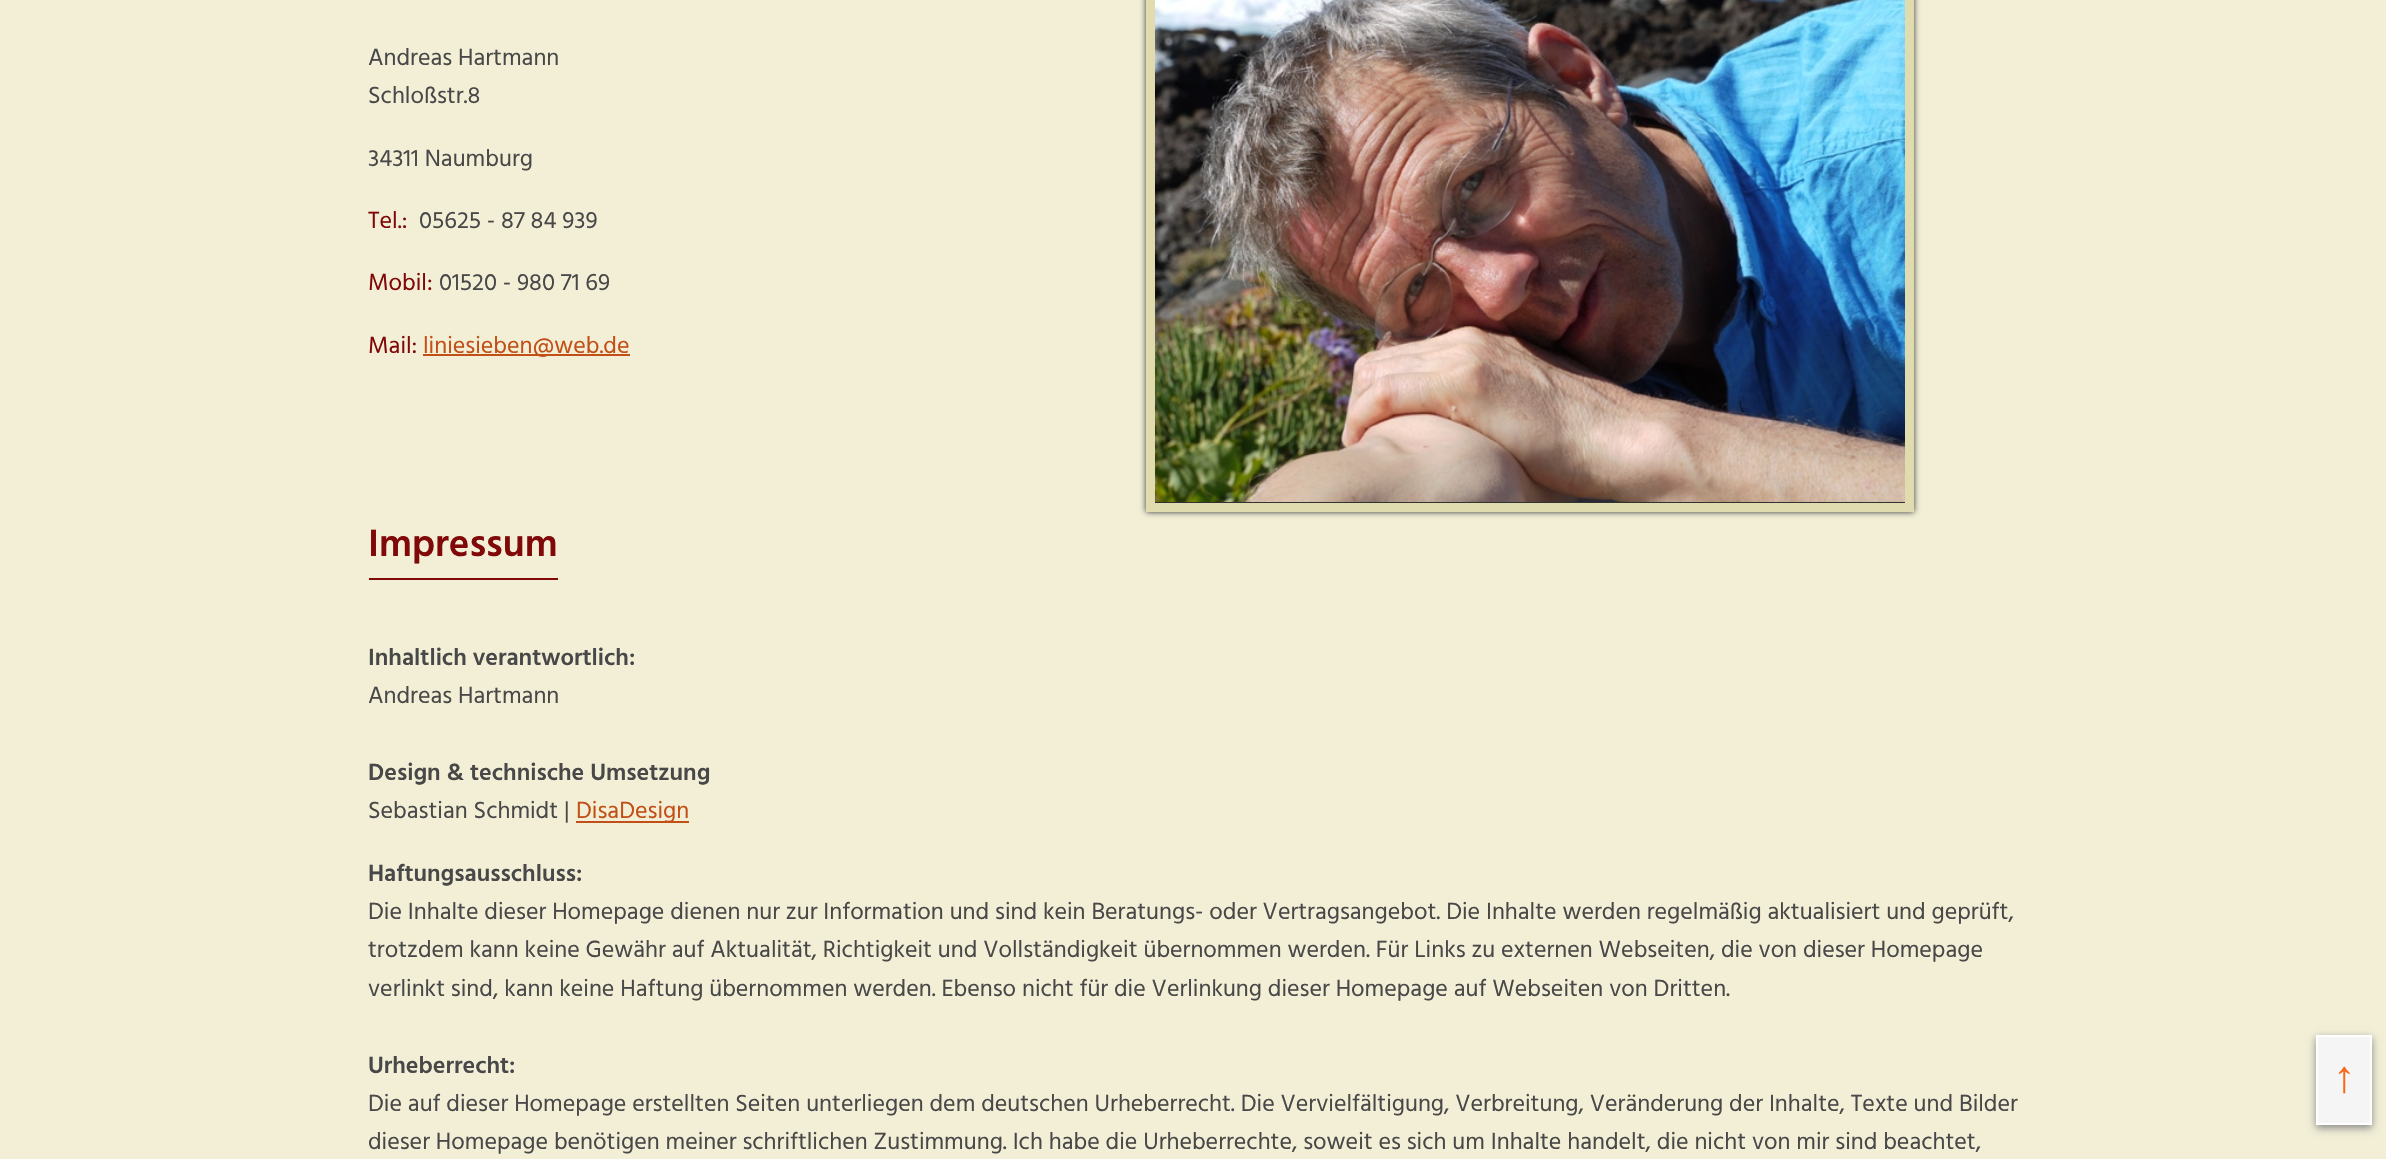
void draw(SkCanvas* canvas) {
	SkPaint paint;
	paint.setAntiAlias(true);
	canvas->clear(0xfff2efd6);
	SkFont f1(fontMgr->matchFamilyStyle("Hind", SkFontStyle::Normal()), 24);
	f1.setSubpixel(true);
	paint.setColor(0xff494848);
	canvas->drawString("Andreas Hartmann", 368, 65, f1, paint);
	canvas->drawString("Schloßstr.8", 368, 103, f1, paint);
	paint.setColor(0xff323232);
	paint.setMaskFilter(SkMaskFilter::MakeBlur(kNormal_SkBlurStyle, 3));
	canvas->drawRect(SkRect::MakeXYWH(1146, -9, 768, 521), paint);
	paint.setMaskFilter(nullptr);
	paint.setStroke(true);
	paint.setStrokeWidth(9);
	paint.setColor(0xffe1dbb0);
	canvas->drawRect(SkRect::MakeXYWH(1150.5, -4.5, 759, 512), paint);
	canvas->drawImageRect(SkImages::DeferredFromEncodedData(SkData::MakeFromFileName("img1.png")), SkRect::MakeXYWH(1155, 0, 750, 502), SkSamplingOptions());
	paint.setStroke(false);
	paint.setColor(0xff494848);
	canvas->drawString("34311 Naumburg", 368, 166, f1, paint);
	paint.setColor(0xff800808);
	canvas->drawString("Tel.:", 368, 228, f1, paint);
	paint.setColor(0xff494848);
	canvas->drawString("05625 - 87 84 939", 419, 228, f1, paint);
	paint.setColor(0xff800808);
	canvas->drawString("Mobil:", 368, 290, f1, paint);
	paint.setColor(0xff494848);
	canvas->drawString("01520 - 980 71 69", 439, 290, f1, paint);
	paint.setColor(0xff800808);
	canvas->drawString("Mail:", 368, 353, f1, paint);
	paint.setColor(0xffc24f15);
	canvas->drawRect(SkRect::MakeXYWH(423, 354, 207, 2), paint);
	canvas->drawString("liniesieben@web.de", 423, 353, f1, paint);
	SkFont f2(fontMgr->matchFamilyStyle("Hind", SkFontStyle(600, SkFontStyle::kNormal_Width, SkFontStyle::kUpright_Slant)), 39);
	f2.setSubpixel(true);
	paint.setColor(0xff800808);
	canvas->drawString("Impressum", 368, 556, f2, paint);
	canvas->drawRect(SkRect::MakeXYWH(369, 578, 189, 2), paint);
	SkFont f3(fontMgr->matchFamilyStyle("Hind", SkFontStyle(600, SkFontStyle::kNormal_Width, SkFontStyle::kUpright_Slant)), 24);
	f3.setSubpixel(true);
	paint.setColor(0xff494848);
	canvas->drawString("Inhaltlich verantwortlich:", 368, 665, f3, paint);
	canvas->drawString("Andreas Hartmann", 368, 703, f1, paint);
	canvas->drawString("Design & technische Umsetzung", 368, 780, f3, paint);
	canvas->drawString("Sebastian Schmidt |", 368, 818, f1, paint);
	paint.setColor(0xffc24f15);
	canvas->drawRect(SkRect::MakeXYWH(576, 821, 113, 2), paint);
	canvas->drawString("DisaDesign", 576, 818, f1, paint);
	paint.setColor(0xff494848);
	canvas->drawString("Haftungsausschluss:", 368, 881, f3, paint);
	canvas->drawString("Die Inhalte dieser Homepage dienen nur zur Information und sind kein Beratungs- oder Vertragsangebot. Die Inhalte werden regelmäßig aktualisiert und geprüft,", 368, 919, f1, paint);
	canvas->drawString("trotzdem kann keine Gewähr auf Aktualität, Richtigkeit und Vollständigkeit übernommen werden. Für Links zu externen Webseiten, die von dieser Homepage", 368, 957, f1, paint);
	canvas->drawString("verlinkt sind, kann keine Haftung übernommen werden. Ebenso nicht für die Verlinkung dieser Homepage auf Webseiten von Dritten.", 368, 996, f1, paint);
	canvas->drawString("Urheberrecht:", 368, 1073, f3, paint);
	canvas->drawString("Die auf dieser Homepage erstellten Seiten unterliegen dem deutschen Urheberrecht. Die Vervielfältigung, Verbreitung, Veränderung der Inhalte, Texte und Bilder", 368, 1111, f1, paint);
	canvas->drawString("dieser Homepage benötigen meiner schriftlichen Zustimmung. Ich habe die Urheberrechte, soweit es sich um Inhalte handelt, die nicht von mir sind beachtet,", 368, 1149, f1, paint);
	paint.setColor(0xff888888);
	paint.setMaskFilter(SkMaskFilter::MakeBlur(kNormal_SkBlurStyle, 4));
	canvas->drawRect(SkRect::MakeXYWH(2316, 1038, 56, 90), paint);
	paint.setMaskFilter(nullptr);
	paint.setColor(0xfff5f5f5);
	canvas->drawRect(SkRect::MakeXYWH(2317, 1036, 54, 88), paint);
	paint.setStroke(true);
	paint.setStrokeWidth(2);
	paint.setColor(0xffffffff);
	canvas->drawRect(SkRect::MakeXYWH(2317, 1036, 54, 88), paint);
	SkFont f4(fontMgr->matchFamilyStyle("Liberation Sans", SkFontStyle::Bold()), 45);
	f4.setSubpixel(true);
	paint.setStroke(false);
	paint.setColor(0xfff7681a);
	canvas->drawString("↑", 2333, 1092, f4, paint);
}
